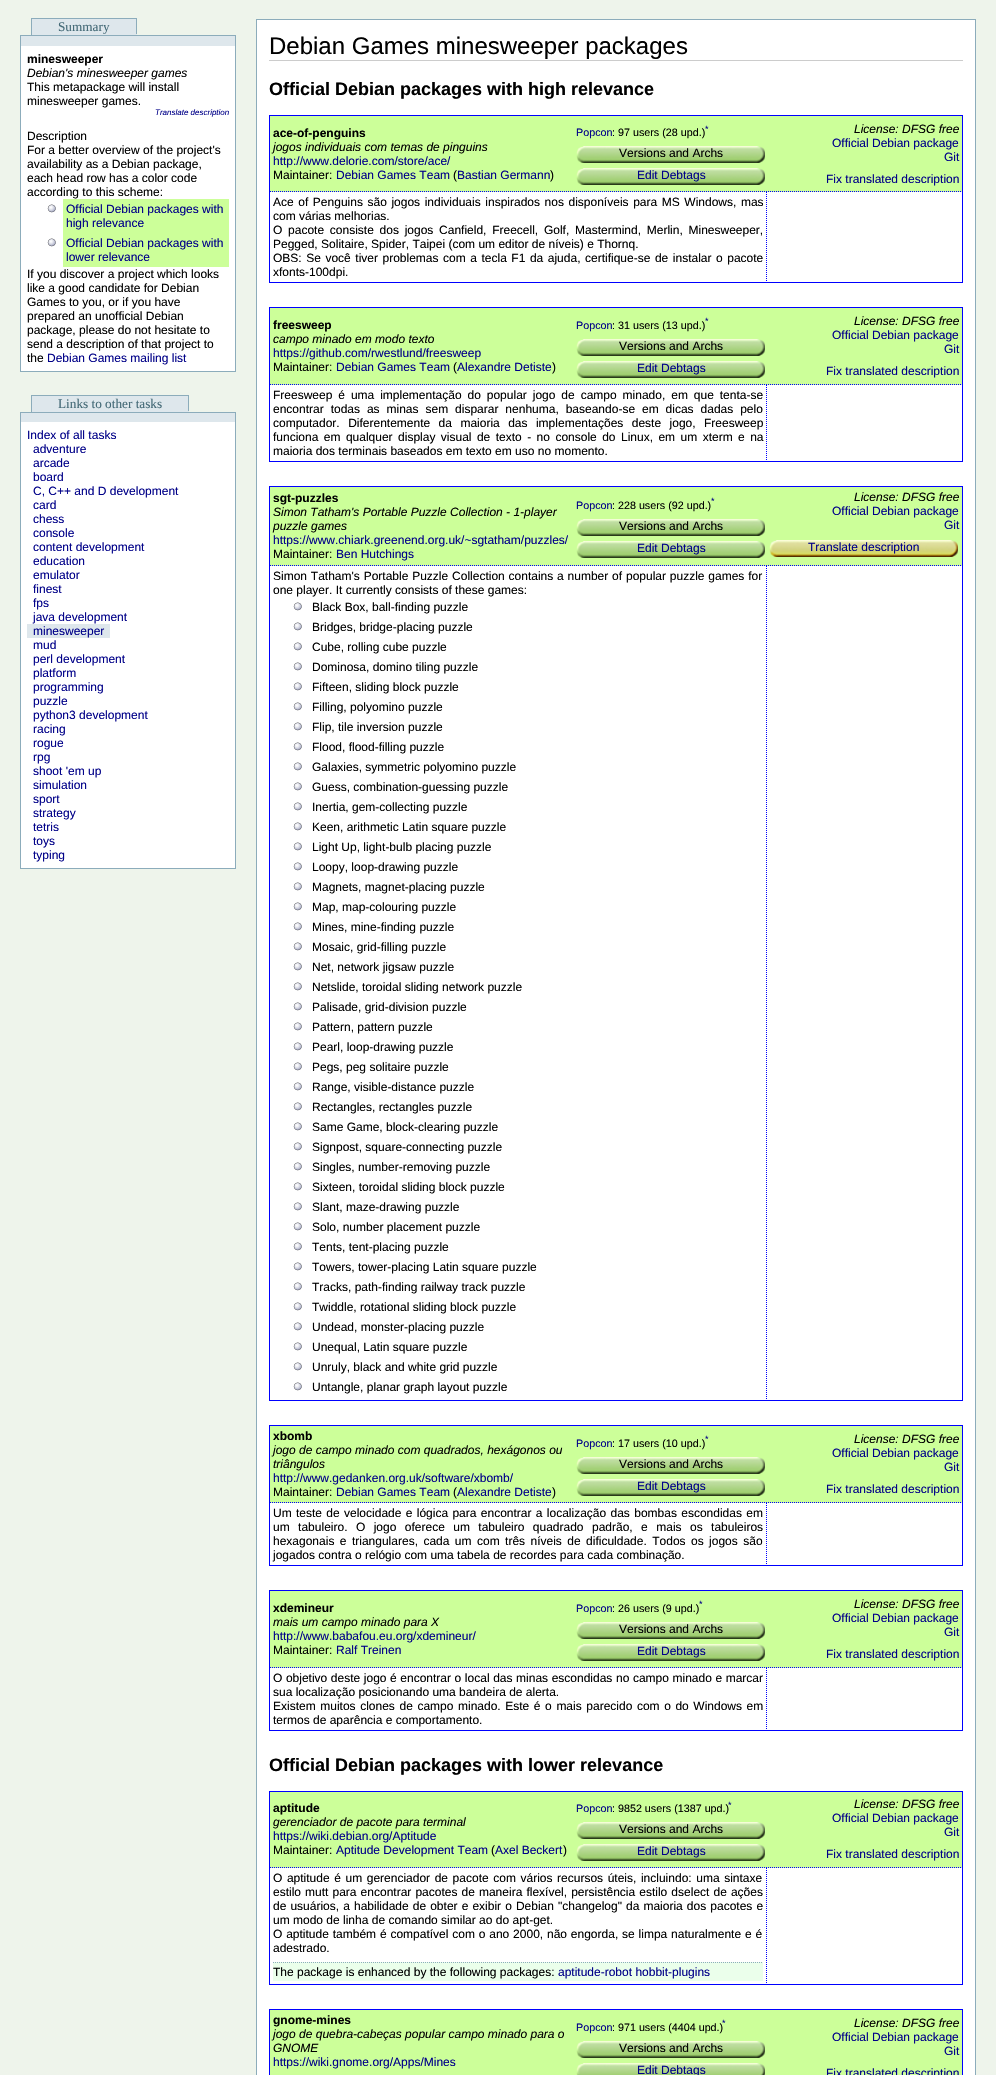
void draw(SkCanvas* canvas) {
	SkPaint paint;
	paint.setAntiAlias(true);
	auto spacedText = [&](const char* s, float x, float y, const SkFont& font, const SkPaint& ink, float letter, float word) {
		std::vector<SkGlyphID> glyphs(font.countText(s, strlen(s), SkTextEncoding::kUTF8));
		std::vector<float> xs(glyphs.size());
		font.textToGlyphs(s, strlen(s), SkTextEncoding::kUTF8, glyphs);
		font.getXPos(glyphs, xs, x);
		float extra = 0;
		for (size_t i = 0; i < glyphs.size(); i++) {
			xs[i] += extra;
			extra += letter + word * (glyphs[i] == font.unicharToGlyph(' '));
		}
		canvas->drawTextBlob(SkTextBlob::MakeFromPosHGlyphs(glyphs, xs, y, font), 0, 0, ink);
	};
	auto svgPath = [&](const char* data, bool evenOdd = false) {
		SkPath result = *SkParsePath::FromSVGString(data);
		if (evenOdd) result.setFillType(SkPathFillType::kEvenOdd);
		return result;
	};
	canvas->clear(0xffeef4eb);
	paint.setColor(0xffdee7ec);
	canvas->drawRect(SkRect::MakeXYWH(32, 19, 104, 15), paint);
	SkFont f1(fontMgr->matchFamilyStyle("Liberation Serif", SkFontStyle::Normal()), 13.25);
	f1.setSubpixel(true);
	paint.setColor(0xff436976);
	canvas->drawString("Summary", 58, 31, f1, paint);
	paint.setColor(0xff8cacbb);
	canvas->drawRect(SkRect::MakeXYWH(31, 18, 106, 1), paint);
	canvas->drawRect(SkRect::MakeXYWH(136, 18, 1, 17), paint);
	paint.setColor(0xffdee7ec);
	canvas->drawRect(SkRect::MakeXYWH(31, 34, 106, 1), paint);
	paint.setColor(0xff8cacbb);
	canvas->drawRect(SkRect::MakeXYWH(31, 18, 1, 17), paint);
	paint.setColor(0xffffffff);
	canvas->drawRect(SkRect::MakeXYWH(21, 46, 214, 325), paint);
	paint.setStroke(true);
	paint.setStrokeWidth(1);
	paint.setColor(0xff8cacbb);
	canvas->drawRect(SkRect::MakeXYWH(20.5, 35.5, 215, 336), paint);
	paint.setStroke(false);
	paint.setColor(0xffdee7ec);
	canvas->drawRect(SkRect::MakeXYWH(21, 36, 214, 10), paint);
	SkFont f2(fontMgr->matchFamilyStyle("Liberation Sans", SkFontStyle::Bold()), 12);
	f2.setSubpixel(true);
	paint.setColor(0xff000000);
	canvas->drawString("minesweeper", 27, 63, f2, paint);
	SkFont f3(fontMgr->matchFamilyStyle("Liberation Sans", SkFontStyle::Italic()), 12);
	f3.setSubpixel(true);
	canvas->drawString("Debian's minesweeper games", 27, 77, f3, paint);
	SkFont f4(fontMgr->matchFamilyStyle("Liberation Sans", SkFontStyle::Normal()), 12);
	f4.setSubpixel(true);
	canvas->drawString("This metapackage will install", 27, 91, f4, paint);
	canvas->drawString("minesweeper games.", 27, 105, f4, paint);
	SkFont f5(fontMgr->matchFamilyStyle("Liberation Sans", SkFontStyle::Italic()), 8);
	f5.setSubpixel(true);
	paint.setColor(0xff000088);
	canvas->drawString("Translate description", 155, 115, f5, paint);
	paint.setColor(0xff000000);
	canvas->drawString("Description", 27, 140, f4, paint);
	canvas->drawString("For a better overview of the project's", 27, 154, f4, paint);
	canvas->drawString("availability as a Debian package,", 27, 168, f4, paint);
	canvas->drawString("each head row has a color code", 27, 182, f4, paint);
	canvas->drawString("according to this scheme:", 27, 196, f4, paint);
	paint.setColor(0xffccff99);
	canvas->drawRect(SkRect::MakeXYWH(63, 199, 166, 68), paint);
	canvas->drawImageRect(SkImages::DeferredFromEncodedData(SkData::MakeFromFileName("img1.png")), SkRect::MakeXYWH(47, 204, 9, 9), SkSamplingOptions());
	paint.setColor(0xff000088);
	canvas->drawString("Official Debian packages with", 66, 213, f4, paint);
	canvas->drawString("high relevance", 66, 227, f4, paint);
	canvas->drawImageRect(SkImages::DeferredFromEncodedData(SkData::MakeFromFileName("img1.png")), SkRect::MakeXYWH(47, 238, 9, 9), SkSamplingOptions());
	canvas->drawString("Official Debian packages with", 66, 247, f4, paint);
	canvas->drawString("lower relevance", 66, 261, f4, paint);
	paint.setColor(0xff000000);
	canvas->drawString("If you discover a project which looks", 27, 278, f4, paint);
	canvas->drawString("like a good candidate for Debian", 27, 292, f4, paint);
	canvas->drawString("Games to you, or if you have", 27, 306, f4, paint);
	canvas->drawString("prepared an unofficial Debian", 27, 320, f4, paint);
	canvas->drawString("package, please do not hesitate to", 27, 334, f4, paint);
	canvas->drawString("send a description of that project to", 27, 348, f4, paint);
	canvas->drawString("the", 27, 362, f4, paint);
	paint.setColor(0xff000088);
	canvas->drawString("Debian Games mailing list", 47, 362, f4, paint);
	paint.setColor(0xffdee7ec);
	canvas->drawRect(SkRect::MakeXYWH(32, 396, 156, 15), paint);
	paint.setColor(0xff436976);
	canvas->drawString("Links to other tasks", 58, 408, f1, paint);
	paint.setColor(0xff8cacbb);
	canvas->drawRect(SkRect::MakeXYWH(31, 395, 158, 1), paint);
	canvas->drawRect(SkRect::MakeXYWH(188, 395, 1, 17), paint);
	paint.setColor(0xffdee7ec);
	canvas->drawRect(SkRect::MakeXYWH(31, 411, 158, 1), paint);
	paint.setColor(0xff8cacbb);
	canvas->drawRect(SkRect::MakeXYWH(31, 395, 1, 17), paint);
	paint.setColor(0xffffffff);
	canvas->drawRect(SkRect::MakeXYWH(21, 422, 214, 446), paint);
	paint.setStroke(true);
	paint.setColor(0xff8cacbb);
	canvas->drawRect(SkRect::MakeXYWH(20.5, 412.5, 215, 456), paint);
	paint.setStroke(false);
	paint.setColor(0xffdee7ec);
	canvas->drawRect(SkRect::MakeXYWH(21, 413, 214, 9), paint);
	paint.setColor(0xff000088);
	canvas->drawString("Index of all tasks", 27, 439, f4, paint);
	canvas->drawString("adventure", 33, 453, f4, paint);
	canvas->drawString("arcade", 33, 467, f4, paint);
	canvas->drawString("board", 33, 481, f4, paint);
	canvas->drawString("C, C++ and D development", 33, 495, f4, paint);
	canvas->drawString("card", 33, 509, f4, paint);
	canvas->drawString("chess", 33, 523, f4, paint);
	canvas->drawString("console", 33, 537, f4, paint);
	canvas->drawString("content development", 33, 551, f4, paint);
	canvas->drawString("education", 33, 565, f4, paint);
	canvas->drawString("emulator", 33, 579, f4, paint);
	canvas->drawString("finest", 33, 593, f4, paint);
	canvas->drawString("fps", 33, 607, f4, paint);
	canvas->drawString("java development", 33, 621, f4, paint);
	paint.setColor(0xffdee7ec);
	canvas->drawRect(SkRect::MakeXYWH(27, 624, 83, 14), paint);
	paint.setColor(0xff000088);
	canvas->drawString("minesweeper", 33, 635, f4, paint);
	canvas->drawString("mud", 33, 649, f4, paint);
	canvas->drawString("perl development", 33, 663, f4, paint);
	canvas->drawString("platform", 33, 677, f4, paint);
	canvas->drawString("programming", 33, 691, f4, paint);
	canvas->drawString("puzzle", 33, 705, f4, paint);
	canvas->drawString("python3 development", 33, 719, f4, paint);
	canvas->drawString("racing", 33, 733, f4, paint);
	canvas->drawString("rogue", 33, 747, f4, paint);
	canvas->drawString("rpg", 33, 761, f4, paint);
	canvas->drawString("shoot 'em up", 33, 775, f4, paint);
	canvas->drawString("simulation", 33, 789, f4, paint);
	canvas->drawString("sport", 33, 803, f4, paint);
	canvas->drawString("strategy", 33, 817, f4, paint);
	canvas->drawString("tetris", 33, 831, f4, paint);
	canvas->drawString("toys", 33, 845, f4, paint);
	canvas->drawString("typing", 33, 859, f4, paint);
	paint.setColor(0xffffffff);
	canvas->drawRect(SkRect::MakeXYWH(256.5, 19.5, 719, 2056), paint);
	paint.setStroke(true);
	paint.setColor(0xff8cacbb);
	canvas->drawRect(SkRect::MakeXYWH(256.5, 19.5, 719, 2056), paint);
	paint.setStroke(false);
	paint.setColor(0xffcccccc);
	canvas->drawRect(SkRect::MakeXYWH(269, 60, 694, 1), paint);
	SkFont f6(fontMgr->matchFamilyStyle("Liberation Sans", SkFontStyle::Normal()), 24);
	f6.setSubpixel(true);
	paint.setColor(0xff000000);
	canvas->drawString("Debian Games minesweeper packages", 269, 54, f6, paint);
	SkFont f7(fontMgr->matchFamilyStyle("Liberation Sans", SkFontStyle::Bold()), 18);
	f7.setSubpixel(true);
	canvas->drawString("Official Debian packages with high relevance", 269, 95, f7, paint);
	paint.setStroke(true);
	paint.setColor(0xff0000ff);
	canvas->drawRect(SkRect::MakeXYWH(269.5, 115.5, 693, 167), paint);
	paint.setStroke(false);
	paint.setColor(0xffccff99);
	canvas->drawRect(SkRect::MakeXYWH(270, 116, 692, 76), paint);
	paint.setStroke(true);
	paint.setColor(0xff0000ff);
	paint.setPathEffect(SkDashPathEffect::Make({{1, 1}}, 0));
	canvas->drawPath(svgPath("M270 191.5H576"), paint);
	paint.setPathEffect(nullptr);
	paint.setStroke(false);
	paint.setColor(0xff000000);
	canvas->drawString("ace-of-penguins", 273, 137, f2, paint);
	canvas->drawString("jogos individuais com temas de pinguins", 273, 151, f3, paint);
	paint.setColor(0xff000088);
	canvas->drawString("http://www.delorie.com/store/ace/", 273, 165, f4, paint);
	paint.setColor(0xff000000);
	canvas->drawString("Maintainer:", 273, 179, f4, paint);
	paint.setColor(0xff000088);
	canvas->drawString("Debian Games Team", 336, 179, f4, paint);
	paint.setColor(0xff000000);
	canvas->drawString("(", 453, 179, f4, paint);
	paint.setColor(0xff000088);
	canvas->drawString("Bastian Germann", 457, 179, f4, paint);
	paint.setColor(0xff000000);
	canvas->drawString(")", 550, 179, f4, paint);
	paint.setStroke(true);
	paint.setColor(0xff0000ff);
	paint.setPathEffect(SkDashPathEffect::Make({{1, 1}}, 0));
	canvas->drawPath(svgPath("M576 191.5H766"), paint);
	paint.setPathEffect(nullptr);
	SkFont f8(fontMgr->matchFamilyStyle("Liberation Sans", SkFontStyle::Normal()), 9);
	f8.setSubpixel(true);
	paint.setStroke(false);
	paint.setColor(0xff000088);
	canvas->drawString("*", 705, 132, f8, paint);
	SkFont f9(fontMgr->matchFamilyStyle("Liberation Sans", SkFontStyle::Normal()), 10.75);
	f9.setSubpixel(true);
	canvas->drawString("Popcon", 576, 136, f9, paint);
	paint.setColor(0xff000000);
	canvas->drawString(": 97 users (28 upd.)", 612, 136, f9, paint);
	canvas->drawImageRect(SkImages::DeferredFromEncodedData(SkData::MakeFromFileName("img2.png")), SkRect::MakeXYWH(576, 146, 189, 17), SkSamplingOptions());
	canvas->drawString("Versions and Archs", 619, 157, f4, paint);
	canvas->drawImageRect(SkImages::DeferredFromEncodedData(SkData::MakeFromFileName("img2.png")), SkRect::MakeXYWH(576, 168, 189, 17), SkSamplingOptions());
	paint.setColor(0xff000088);
	canvas->drawString("Edit Debtags", 637, 179, f4, paint);
	paint.setStroke(true);
	paint.setColor(0xff0000ff);
	paint.setPathEffect(SkDashPathEffect::Make({{1, 1}}, 0));
	canvas->drawPath(svgPath("M766 191.5H962"), paint);
	paint.setPathEffect(nullptr);
	paint.setStroke(false);
	paint.setColor(0xff000000);
	canvas->drawString("License: DFSG free", 854, 133, f3, paint);
	paint.setColor(0xff000088);
	canvas->drawString("Official Debian package", 832, 147, f4, paint);
	canvas->drawString("Git", 944, 161, f4, paint);
	canvas->drawString("Fix translated description", 826, 183, f4, paint);
	paint.setColor(0xff000000);
	spacedText("Ace of Penguins são jogos individuais inspirados nos disponíveis para MS Windows, mas", 273, 206, f4, paint, 0, 1.25);
	canvas->drawString("com várias melhorias.", 273, 220, f4, paint);
	spacedText("O pacote consiste dos jogos Canfield, Freecell, Golf, Mastermind, Merlin, Minesweeper,", 273, 234, f4, paint, 0, 2.4);
	canvas->drawString("Pegged, Solitaire, Spider, Taipei (com um editor de níveis) e Thornq.", 273, 248, f4, paint);
	spacedText("OBS: Se você tiver problemas com a tecla F1 da ajuda, certifique-se de instalar o pacote", 273, 262, f4, paint, 0, 1.2);
	canvas->drawString("xfonts-100dpi.", 273, 276, f4, paint);
	paint.setStroke(true);
	paint.setColor(0xff0000ff);
	paint.setPathEffect(SkDashPathEffect::Make({{1, 1}}, 0));
	canvas->drawPath(svgPath("M766.5 192V282"), paint);
	paint.setPathEffect(nullptr);
	canvas->drawRect(SkRect::MakeXYWH(269.5, 307.5, 693, 154), paint);
	paint.setStroke(false);
	paint.setColor(0xffccff99);
	canvas->drawRect(SkRect::MakeXYWH(270, 308, 692, 77), paint);
	paint.setStroke(true);
	paint.setColor(0xff0000ff);
	paint.setPathEffect(SkDashPathEffect::Make({{1, 1}}, 0));
	canvas->drawPath(svgPath("M270 384.5H576"), paint);
	paint.setPathEffect(nullptr);
	paint.setStroke(false);
	paint.setColor(0xff000000);
	canvas->drawString("freesweep", 273, 329, f2, paint);
	canvas->drawString("campo minado em modo texto", 273, 343, f3, paint);
	paint.setColor(0xff000088);
	canvas->drawString("https://github.com/rwestlund/freesweep", 273, 357, f4, paint);
	paint.setColor(0xff000000);
	canvas->drawString("Maintainer:", 273, 371, f4, paint);
	paint.setColor(0xff000088);
	canvas->drawString("Debian Games Team", 336, 371, f4, paint);
	paint.setColor(0xff000000);
	canvas->drawString("(", 453, 371, f4, paint);
	paint.setColor(0xff000088);
	canvas->drawString("Alexandre Detiste", 457, 371, f4, paint);
	paint.setColor(0xff000000);
	canvas->drawString(")", 552, 371, f4, paint);
	paint.setStroke(true);
	paint.setColor(0xff0000ff);
	paint.setPathEffect(SkDashPathEffect::Make({{1, 1}}, 0));
	canvas->drawPath(svgPath("M576 384.5H766"), paint);
	paint.setPathEffect(nullptr);
	paint.setStroke(false);
	paint.setColor(0xff000088);
	canvas->drawString("*", 705, 324, f8, paint);
	canvas->drawString("Popcon", 576, 329, f9, paint);
	paint.setColor(0xff000000);
	canvas->drawString(": 31 users (13 upd.)", 612, 329, f9, paint);
	canvas->drawImageRect(SkImages::DeferredFromEncodedData(SkData::MakeFromFileName("img2.png")), SkRect::MakeXYWH(576, 339, 189, 17), SkSamplingOptions());
	canvas->drawString("Versions and Archs", 619, 350, f4, paint);
	canvas->drawImageRect(SkImages::DeferredFromEncodedData(SkData::MakeFromFileName("img2.png")), SkRect::MakeXYWH(576, 361, 189, 17), SkSamplingOptions());
	paint.setColor(0xff000088);
	canvas->drawString("Edit Debtags", 637, 372, f4, paint);
	paint.setStroke(true);
	paint.setColor(0xff0000ff);
	paint.setPathEffect(SkDashPathEffect::Make({{1, 1}}, 0));
	canvas->drawPath(svgPath("M766 384.5H962"), paint);
	paint.setPathEffect(nullptr);
	paint.setStroke(false);
	paint.setColor(0xff000000);
	canvas->drawString("License: DFSG free", 854, 325, f3, paint);
	paint.setColor(0xff000088);
	canvas->drawString("Official Debian package", 832, 339, f4, paint);
	canvas->drawString("Git", 944, 353, f4, paint);
	canvas->drawString("Fix translated description", 826, 375, f4, paint);
	paint.setColor(0xff000000);
	spacedText("Freesweep é uma implementação do popular jogo de campo minado, em que tenta-se", 273, 399, f4, paint, 0, 2.6);
	spacedText("encontrar todas as minas sem disparar nenhuma, baseando-se em dicas dadas pelo", 273, 413, f4, paint, 0, 3.6);
	spacedText("computador. Diferentemente da maioria das implementações deste jogo, Freesweep", 273, 427, f4, paint, 0, 5.1);
	spacedText("funciona em qualquer display visual de texto - no console do Linux, em um xterm e na", 273, 441, f4, paint, 0, 2.1);
	canvas->drawString("maioria dos terminais baseados em texto em uso no momento.", 273, 455, f4, paint);
	paint.setStroke(true);
	paint.setColor(0xff0000ff);
	paint.setPathEffect(SkDashPathEffect::Make({{1, 1}}, 0));
	canvas->drawPath(svgPath("M766.5 385V461"), paint);
	paint.setPathEffect(nullptr);
	canvas->drawRect(SkRect::MakeXYWH(269.5, 486.5, 693, 914), paint);
	paint.setStroke(false);
	paint.setColor(0xffccff99);
	canvas->drawRect(SkRect::MakeXYWH(270, 487, 692, 79), paint);
	paint.setStroke(true);
	paint.setColor(0xff0000ff);
	paint.setPathEffect(SkDashPathEffect::Make({{1, 1}}, 0));
	canvas->drawPath(svgPath("M270 565.5H576"), paint);
	paint.setPathEffect(nullptr);
	paint.setStroke(false);
	paint.setColor(0xff000000);
	canvas->drawString("sgt-puzzles", 273, 502, f2, paint);
	canvas->drawString("Simon Tatham's Portable Puzzle Collection - 1-player", 273, 516, f3, paint);
	canvas->drawString("puzzle games", 273, 530, f3, paint);
	paint.setColor(0xff000088);
	canvas->drawString("https://www.chiark.greenend.org.uk/~sgtatham/puzzles/", 273, 544, f4, paint);
	paint.setColor(0xff000000);
	canvas->drawString("Maintainer:", 273, 558, f4, paint);
	paint.setColor(0xff000088);
	canvas->drawString("Ben Hutchings", 336, 558, f4, paint);
	paint.setStroke(true);
	paint.setColor(0xff0000ff);
	paint.setPathEffect(SkDashPathEffect::Make({{1, 1}}, 0));
	canvas->drawPath(svgPath("M576 565.5H766"), paint);
	paint.setPathEffect(nullptr);
	paint.setStroke(false);
	paint.setColor(0xff000088);
	canvas->drawString("*", 711, 504, f8, paint);
	canvas->drawString("Popcon", 576, 509, f9, paint);
	paint.setColor(0xff000000);
	canvas->drawString(": 228 users (92 upd.)", 612, 509, f9, paint);
	canvas->drawImageRect(SkImages::DeferredFromEncodedData(SkData::MakeFromFileName("img2.png")), SkRect::MakeXYWH(576, 519, 189, 17), SkSamplingOptions());
	canvas->drawString("Versions and Archs", 619, 530, f4, paint);
	canvas->drawImageRect(SkImages::DeferredFromEncodedData(SkData::MakeFromFileName("img2.png")), SkRect::MakeXYWH(576, 541, 189, 17), SkSamplingOptions());
	paint.setColor(0xff000088);
	canvas->drawString("Edit Debtags", 637, 552, f4, paint);
	paint.setStroke(true);
	paint.setColor(0xff0000ff);
	paint.setPathEffect(SkDashPathEffect::Make({{1, 1}}, 0));
	canvas->drawPath(svgPath("M766 565.5H962"), paint);
	paint.setPathEffect(nullptr);
	paint.setStroke(false);
	paint.setColor(0xff000000);
	canvas->drawString("License: DFSG free", 854, 501, f3, paint);
	paint.setColor(0xff000088);
	canvas->drawString("Official Debian package", 832, 515, f4, paint);
	canvas->drawString("Git", 944, 529, f4, paint);
	canvas->drawImageRect(SkImages::DeferredFromEncodedData(SkData::MakeFromFileName("img3.png")), SkRect::MakeXYWH(769, 540, 189, 17), SkSamplingOptions());
	canvas->drawString("Translate description", 808, 551, f4, paint);
	paint.setColor(0xff000000);
	spacedText("Simon Tatham's Portable Puzzle Collection contains a number of popular puzzle games for", 273, 580, f4, paint, 0, 0.5);
	canvas->drawString("one player. It currently consists of these games:", 273, 594, f4, paint);
	canvas->drawImageRect(SkImages::DeferredFromEncodedData(SkData::MakeFromFileName("img1.png")), SkRect::MakeXYWH(293, 602, 9, 9), SkSamplingOptions());
	canvas->drawString("Black Box, ball-finding puzzle", 312, 611, f4, paint);
	canvas->drawImageRect(SkImages::DeferredFromEncodedData(SkData::MakeFromFileName("img1.png")), SkRect::MakeXYWH(293, 622, 9, 9), SkSamplingOptions());
	canvas->drawString("Bridges, bridge-placing puzzle", 312, 631, f4, paint);
	canvas->drawImageRect(SkImages::DeferredFromEncodedData(SkData::MakeFromFileName("img1.png")), SkRect::MakeXYWH(293, 642, 9, 9), SkSamplingOptions());
	canvas->drawString("Cube, rolling cube puzzle", 312, 651, f4, paint);
	canvas->drawImageRect(SkImages::DeferredFromEncodedData(SkData::MakeFromFileName("img1.png")), SkRect::MakeXYWH(293, 662, 9, 9), SkSamplingOptions());
	canvas->drawString("Dominosa, domino tiling puzzle", 312, 671, f4, paint);
	canvas->drawImageRect(SkImages::DeferredFromEncodedData(SkData::MakeFromFileName("img1.png")), SkRect::MakeXYWH(293, 682, 9, 9), SkSamplingOptions());
	canvas->drawString("Fifteen, sliding block puzzle", 312, 691, f4, paint);
	canvas->drawImageRect(SkImages::DeferredFromEncodedData(SkData::MakeFromFileName("img1.png")), SkRect::MakeXYWH(293, 702, 9, 9), SkSamplingOptions());
	canvas->drawString("Filling, polyomino puzzle", 312, 711, f4, paint);
	canvas->drawImageRect(SkImages::DeferredFromEncodedData(SkData::MakeFromFileName("img1.png")), SkRect::MakeXYWH(293, 722, 9, 9), SkSamplingOptions());
	canvas->drawString("Flip, tile inversion puzzle", 312, 731, f4, paint);
	canvas->drawImageRect(SkImages::DeferredFromEncodedData(SkData::MakeFromFileName("img1.png")), SkRect::MakeXYWH(293, 742, 9, 9), SkSamplingOptions());
	canvas->drawString("Flood, flood-filling puzzle", 312, 751, f4, paint);
	canvas->drawImageRect(SkImages::DeferredFromEncodedData(SkData::MakeFromFileName("img1.png")), SkRect::MakeXYWH(293, 762, 9, 9), SkSamplingOptions());
	canvas->drawString("Galaxies, symmetric polyomino puzzle", 312, 771, f4, paint);
	canvas->drawImageRect(SkImages::DeferredFromEncodedData(SkData::MakeFromFileName("img1.png")), SkRect::MakeXYWH(293, 782, 9, 9), SkSamplingOptions());
	canvas->drawString("Guess, combination-guessing puzzle", 312, 791, f4, paint);
	canvas->drawImageRect(SkImages::DeferredFromEncodedData(SkData::MakeFromFileName("img1.png")), SkRect::MakeXYWH(293, 802, 9, 9), SkSamplingOptions());
	canvas->drawString("Inertia, gem-collecting puzzle", 312, 811, f4, paint);
	canvas->drawImageRect(SkImages::DeferredFromEncodedData(SkData::MakeFromFileName("img1.png")), SkRect::MakeXYWH(293, 822, 9, 9), SkSamplingOptions());
	canvas->drawString("Keen, arithmetic Latin square puzzle", 312, 831, f4, paint);
	canvas->drawImageRect(SkImages::DeferredFromEncodedData(SkData::MakeFromFileName("img1.png")), SkRect::MakeXYWH(293, 842, 9, 9), SkSamplingOptions());
	canvas->drawString("Light Up, light-bulb placing puzzle", 312, 851, f4, paint);
	canvas->drawImageRect(SkImages::DeferredFromEncodedData(SkData::MakeFromFileName("img1.png")), SkRect::MakeXYWH(293, 862, 9, 9), SkSamplingOptions());
	canvas->drawString("Loopy, loop-drawing puzzle", 312, 871, f4, paint);
	canvas->drawImageRect(SkImages::DeferredFromEncodedData(SkData::MakeFromFileName("img1.png")), SkRect::MakeXYWH(293, 882, 9, 9), SkSamplingOptions());
	canvas->drawString("Magnets, magnet-placing puzzle", 312, 891, f4, paint);
	canvas->drawImageRect(SkImages::DeferredFromEncodedData(SkData::MakeFromFileName("img1.png")), SkRect::MakeXYWH(293, 902, 9, 9), SkSamplingOptions());
	canvas->drawString("Map, map-colouring puzzle", 312, 911, f4, paint);
	canvas->drawImageRect(SkImages::DeferredFromEncodedData(SkData::MakeFromFileName("img1.png")), SkRect::MakeXYWH(293, 922, 9, 9), SkSamplingOptions());
	canvas->drawString("Mines, mine-finding puzzle", 312, 931, f4, paint);
	canvas->drawImageRect(SkImages::DeferredFromEncodedData(SkData::MakeFromFileName("img1.png")), SkRect::MakeXYWH(293, 942, 9, 9), SkSamplingOptions());
	canvas->drawString("Mosaic, grid-filling puzzle", 312, 951, f4, paint);
	canvas->drawImageRect(SkImages::DeferredFromEncodedData(SkData::MakeFromFileName("img1.png")), SkRect::MakeXYWH(293, 962, 9, 9), SkSamplingOptions());
	canvas->drawString("Net, network jigsaw puzzle", 312, 971, f4, paint);
	canvas->drawImageRect(SkImages::DeferredFromEncodedData(SkData::MakeFromFileName("img1.png")), SkRect::MakeXYWH(293, 982, 9, 9), SkSamplingOptions());
	canvas->drawString("Netslide, toroidal sliding network puzzle", 312, 991, f4, paint);
	canvas->drawImageRect(SkImages::DeferredFromEncodedData(SkData::MakeFromFileName("img1.png")), SkRect::MakeXYWH(293, 1002, 9, 9), SkSamplingOptions());
	canvas->drawString("Palisade, grid-division puzzle", 312, 1011, f4, paint);
	canvas->drawImageRect(SkImages::DeferredFromEncodedData(SkData::MakeFromFileName("img1.png")), SkRect::MakeXYWH(293, 1022, 9, 9), SkSamplingOptions());
	canvas->drawString("Pattern, pattern puzzle", 312, 1031, f4, paint);
	canvas->drawImageRect(SkImages::DeferredFromEncodedData(SkData::MakeFromFileName("img1.png")), SkRect::MakeXYWH(293, 1042, 9, 9), SkSamplingOptions());
	canvas->drawString("Pearl, loop-drawing puzzle", 312, 1051, f4, paint);
	canvas->drawImageRect(SkImages::DeferredFromEncodedData(SkData::MakeFromFileName("img1.png")), SkRect::MakeXYWH(293, 1062, 9, 9), SkSamplingOptions());
	canvas->drawString("Pegs, peg solitaire puzzle", 312, 1071, f4, paint);
	canvas->drawImageRect(SkImages::DeferredFromEncodedData(SkData::MakeFromFileName("img1.png")), SkRect::MakeXYWH(293, 1082, 9, 9), SkSamplingOptions());
	canvas->drawString("Range, visible-distance puzzle", 312, 1091, f4, paint);
	canvas->drawImageRect(SkImages::DeferredFromEncodedData(SkData::MakeFromFileName("img1.png")), SkRect::MakeXYWH(293, 1102, 9, 9), SkSamplingOptions());
	canvas->drawString("Rectangles, rectangles puzzle", 312, 1111, f4, paint);
	canvas->drawImageRect(SkImages::DeferredFromEncodedData(SkData::MakeFromFileName("img1.png")), SkRect::MakeXYWH(293, 1122, 9, 9), SkSamplingOptions());
	canvas->drawString("Same Game, block-clearing puzzle", 312, 1131, f4, paint);
	canvas->drawImageRect(SkImages::DeferredFromEncodedData(SkData::MakeFromFileName("img1.png")), SkRect::MakeXYWH(293, 1142, 9, 9), SkSamplingOptions());
	canvas->drawString("Signpost, square-connecting puzzle", 312, 1151, f4, paint);
	canvas->drawImageRect(SkImages::DeferredFromEncodedData(SkData::MakeFromFileName("img1.png")), SkRect::MakeXYWH(293, 1162, 9, 9), SkSamplingOptions());
	canvas->drawString("Singles, number-removing puzzle", 312, 1171, f4, paint);
	canvas->drawImageRect(SkImages::DeferredFromEncodedData(SkData::MakeFromFileName("img1.png")), SkRect::MakeXYWH(293, 1182, 9, 9), SkSamplingOptions());
	canvas->drawString("Sixteen, toroidal sliding block puzzle", 312, 1191, f4, paint);
	canvas->drawImageRect(SkImages::DeferredFromEncodedData(SkData::MakeFromFileName("img1.png")), SkRect::MakeXYWH(293, 1202, 9, 9), SkSamplingOptions());
	canvas->drawString("Slant, maze-drawing puzzle", 312, 1211, f4, paint);
	canvas->drawImageRect(SkImages::DeferredFromEncodedData(SkData::MakeFromFileName("img1.png")), SkRect::MakeXYWH(293, 1222, 9, 9), SkSamplingOptions());
	canvas->drawString("Solo, number placement puzzle", 312, 1231, f4, paint);
	canvas->drawImageRect(SkImages::DeferredFromEncodedData(SkData::MakeFromFileName("img1.png")), SkRect::MakeXYWH(293, 1242, 9, 9), SkSamplingOptions());
	canvas->drawString("Tents, tent-placing puzzle", 312, 1251, f4, paint);
	canvas->drawImageRect(SkImages::DeferredFromEncodedData(SkData::MakeFromFileName("img1.png")), SkRect::MakeXYWH(293, 1262, 9, 9), SkSamplingOptions());
	canvas->drawString("Towers, tower-placing Latin square puzzle", 312, 1271, f4, paint);
	canvas->drawImageRect(SkImages::DeferredFromEncodedData(SkData::MakeFromFileName("img1.png")), SkRect::MakeXYWH(293, 1282, 9, 9), SkSamplingOptions());
	canvas->drawString("Tracks, path-finding railway track puzzle", 312, 1291, f4, paint);
	canvas->drawImageRect(SkImages::DeferredFromEncodedData(SkData::MakeFromFileName("img1.png")), SkRect::MakeXYWH(293, 1302, 9, 9), SkSamplingOptions());
	canvas->drawString("Twiddle, rotational sliding block puzzle", 312, 1311, f4, paint);
	canvas->drawImageRect(SkImages::DeferredFromEncodedData(SkData::MakeFromFileName("img1.png")), SkRect::MakeXYWH(293, 1322, 9, 9), SkSamplingOptions());
	canvas->drawString("Undead, monster-placing puzzle", 312, 1331, f4, paint);
	canvas->drawImageRect(SkImages::DeferredFromEncodedData(SkData::MakeFromFileName("img1.png")), SkRect::MakeXYWH(293, 1342, 9, 9), SkSamplingOptions());
	canvas->drawString("Unequal, Latin square puzzle", 312, 1351, f4, paint);
	canvas->drawImageRect(SkImages::DeferredFromEncodedData(SkData::MakeFromFileName("img1.png")), SkRect::MakeXYWH(293, 1362, 9, 9), SkSamplingOptions());
	canvas->drawString("Unruly, black and white grid puzzle", 312, 1371, f4, paint);
	canvas->drawImageRect(SkImages::DeferredFromEncodedData(SkData::MakeFromFileName("img1.png")), SkRect::MakeXYWH(293, 1382, 9, 9), SkSamplingOptions());
	canvas->drawString("Untangle, planar graph layout puzzle", 312, 1391, f4, paint);
	paint.setStroke(true);
	paint.setColor(0xff0000ff);
	paint.setPathEffect(SkDashPathEffect::Make({{1, 1}}, 0));
	canvas->drawPath(svgPath("M766.5 566V1400"), paint);
	paint.setPathEffect(nullptr);
	canvas->drawRect(SkRect::MakeXYWH(269.5, 1425.5, 693, 140), paint);
	paint.setStroke(false);
	paint.setColor(0xffccff99);
	canvas->drawRect(SkRect::MakeXYWH(270, 1426, 692, 77), paint);
	paint.setStroke(true);
	paint.setColor(0xff0000ff);
	paint.setPathEffect(SkDashPathEffect::Make({{1, 1}}, 0));
	canvas->drawPath(svgPath("M270 1502.5H576"), paint);
	paint.setPathEffect(nullptr);
	paint.setStroke(false);
	paint.setColor(0xff000000);
	canvas->drawString("xbomb", 273, 1440, f2, paint);
	canvas->drawString("jogo de campo minado com quadrados, hexágonos ou", 273, 1454, f3, paint);
	canvas->drawString("triângulos", 273, 1468, f3, paint);
	paint.setColor(0xff000088);
	canvas->drawString("http://www.gedanken.org.uk/software/xbomb/", 273, 1482, f4, paint);
	paint.setColor(0xff000000);
	canvas->drawString("Maintainer:", 273, 1496, f4, paint);
	paint.setColor(0xff000088);
	canvas->drawString("Debian Games Team", 336, 1496, f4, paint);
	paint.setColor(0xff000000);
	canvas->drawString("(", 453, 1496, f4, paint);
	paint.setColor(0xff000088);
	canvas->drawString("Alexandre Detiste", 457, 1496, f4, paint);
	paint.setColor(0xff000000);
	canvas->drawString(")", 552, 1496, f4, paint);
	paint.setStroke(true);
	paint.setColor(0xff0000ff);
	paint.setPathEffect(SkDashPathEffect::Make({{1, 1}}, 0));
	canvas->drawPath(svgPath("M576 1502.5H766"), paint);
	paint.setPathEffect(nullptr);
	paint.setStroke(false);
	paint.setColor(0xff000088);
	canvas->drawString("*", 705, 1442, f8, paint);
	canvas->drawString("Popcon", 576, 1447, f9, paint);
	paint.setColor(0xff000000);
	canvas->drawString(": 17 users (10 upd.)", 612, 1447, f9, paint);
	canvas->drawImageRect(SkImages::DeferredFromEncodedData(SkData::MakeFromFileName("img2.png")), SkRect::MakeXYWH(576, 1457, 189, 17), SkSamplingOptions());
	canvas->drawString("Versions and Archs", 619, 1468, f4, paint);
	canvas->drawImageRect(SkImages::DeferredFromEncodedData(SkData::MakeFromFileName("img2.png")), SkRect::MakeXYWH(576, 1479, 189, 17), SkSamplingOptions());
	paint.setColor(0xff000088);
	canvas->drawString("Edit Debtags", 637, 1490, f4, paint);
	paint.setStroke(true);
	paint.setColor(0xff0000ff);
	paint.setPathEffect(SkDashPathEffect::Make({{1, 1}}, 0));
	canvas->drawPath(svgPath("M766 1502.5H962"), paint);
	paint.setPathEffect(nullptr);
	paint.setStroke(false);
	paint.setColor(0xff000000);
	canvas->drawString("License: DFSG free", 854, 1443, f3, paint);
	paint.setColor(0xff000088);
	canvas->drawString("Official Debian package", 832, 1457, f4, paint);
	canvas->drawString("Git", 944, 1471, f4, paint);
	canvas->drawString("Fix translated description", 826, 1493, f4, paint);
	paint.setColor(0xff000000);
	spacedText("Um teste de velocidade e lógica para encontrar a localização das bombas escondidas em", 273, 1517, f4, paint, 0, 1);
	spacedText("um tabuleiro. O jogo oferece um tabuleiro quadrado padrão, e mais os tabuleiros", 273, 1531, f4, paint, 0, 5.1);
	spacedText("hexagonais e triangulares, cada um com três níveis de dificuldade. Todos os jogos são", 273, 1545, f4, paint, 0, 2.1);
	canvas->drawString("jogados contra o relógio com uma tabela de recordes para cada combinação.", 273, 1559, f4, paint);
	paint.setStroke(true);
	paint.setColor(0xff0000ff);
	paint.setPathEffect(SkDashPathEffect::Make({{1, 1}}, 0));
	canvas->drawPath(svgPath("M766.5 1503V1565"), paint);
	paint.setPathEffect(nullptr);
	canvas->drawRect(SkRect::MakeXYWH(269.5, 1590.5, 693, 140), paint);
	paint.setStroke(false);
	paint.setColor(0xffccff99);
	canvas->drawRect(SkRect::MakeXYWH(270, 1591, 692, 77), paint);
	paint.setStroke(true);
	paint.setColor(0xff0000ff);
	paint.setPathEffect(SkDashPathEffect::Make({{1, 1}}, 0));
	canvas->drawPath(svgPath("M270 1667.5H576"), paint);
	paint.setPathEffect(nullptr);
	paint.setStroke(false);
	paint.setColor(0xff000000);
	canvas->drawString("xdemineur", 273, 1612, f2, paint);
	canvas->drawString("mais um campo minado para X", 273, 1626, f3, paint);
	paint.setColor(0xff000088);
	canvas->drawString("http://www.babafou.eu.org/xdemineur/", 273, 1640, f4, paint);
	paint.setColor(0xff000000);
	canvas->drawString("Maintainer:", 273, 1654, f4, paint);
	paint.setColor(0xff000088);
	canvas->drawString("Ralf Treinen", 336, 1654, f4, paint);
	paint.setStroke(true);
	paint.setColor(0xff0000ff);
	paint.setPathEffect(SkDashPathEffect::Make({{1, 1}}, 0));
	canvas->drawPath(svgPath("M576 1667.5H766"), paint);
	paint.setPathEffect(nullptr);
	paint.setStroke(false);
	paint.setColor(0xff000088);
	canvas->drawString("*", 699, 1607, f8, paint);
	canvas->drawString("Popcon", 576, 1612, f9, paint);
	paint.setColor(0xff000000);
	canvas->drawString(": 26 users (9 upd.)", 612, 1612, f9, paint);
	canvas->drawImageRect(SkImages::DeferredFromEncodedData(SkData::MakeFromFileName("img2.png")), SkRect::MakeXYWH(576, 1622, 189, 17), SkSamplingOptions());
	canvas->drawString("Versions and Archs", 619, 1633, f4, paint);
	canvas->drawImageRect(SkImages::DeferredFromEncodedData(SkData::MakeFromFileName("img2.png")), SkRect::MakeXYWH(576, 1644, 189, 17), SkSamplingOptions());
	paint.setColor(0xff000088);
	canvas->drawString("Edit Debtags", 637, 1655, f4, paint);
	paint.setStroke(true);
	paint.setColor(0xff0000ff);
	paint.setPathEffect(SkDashPathEffect::Make({{1, 1}}, 0));
	canvas->drawPath(svgPath("M766 1667.5H962"), paint);
	paint.setPathEffect(nullptr);
	paint.setStroke(false);
	paint.setColor(0xff000000);
	canvas->drawString("License: DFSG free", 854, 1608, f3, paint);
	paint.setColor(0xff000088);
	canvas->drawString("Official Debian package", 832, 1622, f4, paint);
	canvas->drawString("Git", 944, 1636, f4, paint);
	canvas->drawString("Fix translated description", 826, 1658, f4, paint);
	paint.setColor(0xff000000);
	spacedText("O objetivo deste jogo é encontrar o local das minas escondidas no campo minado e marcar", 273, 1682, f4, paint, 0, 0.25);
	canvas->drawString("sua localização posicionando uma bandeira de alerta.", 273, 1696, f4, paint);
	spacedText("Existem muitos clones de campo minado. Este é o mais parecido com o do Windows em", 273, 1710, f4, paint, 0, 1.25);
	canvas->drawString("termos de aparência e comportamento.", 273, 1724, f4, paint);
	paint.setStroke(true);
	paint.setColor(0xff0000ff);
	paint.setPathEffect(SkDashPathEffect::Make({{1, 1}}, 0));
	canvas->drawPath(svgPath("M766.5 1668V1730"), paint);
	paint.setPathEffect(nullptr);
	paint.setStroke(false);
	paint.setColor(0xff000000);
	canvas->drawString("Official Debian packages with lower relevance", 269, 1771, f7, paint);
	paint.setStroke(true);
	paint.setColor(0xff0000ff);
	canvas->drawRect(SkRect::MakeXYWH(269.5, 1791.5, 693, 193), paint);
	paint.setStroke(false);
	paint.setColor(0xffccff99);
	canvas->drawRect(SkRect::MakeXYWH(270, 1792, 692, 76), paint);
	paint.setStroke(true);
	paint.setColor(0xff0000ff);
	paint.setPathEffect(SkDashPathEffect::Make({{1, 1}}, 0));
	canvas->drawPath(svgPath("M270 1867.5H576"), paint);
	paint.setPathEffect(nullptr);
	paint.setStroke(false);
	paint.setColor(0xff000000);
	canvas->drawString("aptitude", 273, 1812, f2, paint);
	canvas->drawString("gerenciador de pacote para terminal", 273, 1826, f3, paint);
	paint.setColor(0xff000088);
	canvas->drawString("https://wiki.debian.org/Aptitude", 273, 1840, f4, paint);
	paint.setColor(0xff000000);
	canvas->drawString("Maintainer:", 273, 1854, f4, paint);
	paint.setColor(0xff000088);
	canvas->drawString("Aptitude Development Team", 336, 1854, f4, paint);
	paint.setColor(0xff000000);
	canvas->drawString("(", 491, 1854, f4, paint);
	paint.setColor(0xff000088);
	canvas->drawString("Axel Beckert", 495, 1854, f4, paint);
	paint.setColor(0xff000000);
	canvas->drawString(")", 563, 1854, f4, paint);
	paint.setStroke(true);
	paint.setColor(0xff0000ff);
	paint.setPathEffect(SkDashPathEffect::Make({{1, 1}}, 0));
	canvas->drawPath(svgPath("M576 1867.5H766"), paint);
	paint.setPathEffect(nullptr);
	paint.setStroke(false);
	paint.setColor(0xff000088);
	canvas->drawString("*", 728, 1808, f8, paint);
	canvas->drawString("Popcon", 576, 1812, f9, paint);
	paint.setColor(0xff000000);
	canvas->drawString(": 9852 users (1387 upd.)", 612, 1812, f9, paint);
	canvas->drawImageRect(SkImages::DeferredFromEncodedData(SkData::MakeFromFileName("img2.png")), SkRect::MakeXYWH(576, 1822, 189, 17), SkSamplingOptions());
	canvas->drawString("Versions and Archs", 619, 1833, f4, paint);
	canvas->drawImageRect(SkImages::DeferredFromEncodedData(SkData::MakeFromFileName("img2.png")), SkRect::MakeXYWH(576, 1844, 189, 17), SkSamplingOptions());
	paint.setColor(0xff000088);
	canvas->drawString("Edit Debtags", 637, 1855, f4, paint);
	paint.setStroke(true);
	paint.setColor(0xff0000ff);
	paint.setPathEffect(SkDashPathEffect::Make({{1, 1}}, 0));
	canvas->drawPath(svgPath("M766 1867.5H962"), paint);
	paint.setPathEffect(nullptr);
	paint.setStroke(false);
	paint.setColor(0xff000000);
	canvas->drawString("License: DFSG free", 854, 1808, f3, paint);
	paint.setColor(0xff000088);
	canvas->drawString("Official Debian package", 832, 1822, f4, paint);
	canvas->drawString("Git", 944, 1836, f4, paint);
	canvas->drawString("Fix translated description", 826, 1858, f4, paint);
	paint.setColor(0xff000000);
	spacedText("O aptitude é um gerenciador de pacote com vários recursos úteis, incluindo: uma sintaxe", 273, 1882, f4, paint, 0, 1.25);
	spacedText("estilo mutt para encontrar pacotes de maneira flexível, persistência estilo dselect de ações", 273, 1896, f4, paint, 0, 0.75);
	spacedText("de usuários, a habilidade de obter e exibir o Debian \"changelog\" da maioria dos pacotes e", 273, 1910, f4, paint, 0, 0.75);
	canvas->drawString("um modo de linha de comando similar ao do apt-get.", 273, 1924, f4, paint);
	spacedText("O aptitude também é compatível com o ano 2000, não engorda, se limpa naturalmente e é", 273, 1938, f4, paint, 0, 0.5);
	canvas->drawString("adestrado.", 273, 1952, f4, paint);
	paint.setColor(0xffebffeb);
	canvas->drawRect(SkRect::MakeXYWH(273, 1962, 490, 19), paint);
	paint.setStroke(true);
	paint.setColor(0xff8cacbb);
	paint.setPathEffect(SkDashPathEffect::Make({{1, 1}}, 0));
	canvas->drawPath(svgPath("M273 1962.5H763"), paint);
	paint.setPathEffect(nullptr);
	paint.setStroke(false);
	paint.setColor(0xff000000);
	canvas->drawString("The package is enhanced by the following packages:", 273, 1976, f4, paint);
	paint.setColor(0xff000088);
	canvas->drawString("aptitude-robot hobbit-plugins", 558, 1976, f4, paint);
	paint.setStroke(true);
	paint.setColor(0xff0000ff);
	paint.setPathEffect(SkDashPathEffect::Make({{1, 1}}, 0));
	canvas->drawPath(svgPath("M766.5 1868V1984"), paint);
	paint.setPathEffect(nullptr);
	canvas->drawRect(SkRect::MakeXYWH(269.5, 2009.5, 693, 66), paint);
	paint.setStroke(false);
	paint.setColor(0xffccff99);
	canvas->drawRect(SkRect::MakeXYWH(270, 2010, 692, 65), paint);
	paint.setColor(0xff000000);
	canvas->drawString("gnome-mines", 273, 2024, f2, paint);
	canvas->drawString("jogo de quebra-cabeças popular campo minado para o", 273, 2038, f3, paint);
	canvas->drawString("GNOME", 273, 2052, f3, paint);
	paint.setColor(0xff000088);
	canvas->drawString("https://wiki.gnome.org/Apps/Mines", 273, 2066, f4, paint);
	canvas->drawString("*", 722, 2026, f8, paint);
	canvas->drawString("Popcon", 576, 2031, f9, paint);
	paint.setColor(0xff000000);
	canvas->drawString(": 971 users (4404 upd.)", 612, 2031, f9, paint);
	canvas->drawImageRect(SkImages::DeferredFromEncodedData(SkData::MakeFromFileName("img2.png")), SkRect::MakeXYWH(576, 2041, 189, 17), SkSamplingOptions());
	canvas->drawString("Versions and Archs", 619, 2052, f4, paint);
	canvas->drawImageRect(SkImages::DeferredFromEncodedData(SkData::MakeFromFileName("img4.png")), SkRect::MakeXYWH(576, 2063, 189, 12), SkSamplingOptions());
	paint.setColor(0xff000088);
	canvas->drawString("Edit Debtags", 637, 2074, f4, paint);
	paint.setColor(0xff000000);
	canvas->drawString("License: DFSG free", 854, 2027, f3, paint);
	paint.setColor(0xff000088);
	canvas->drawString("Official Debian package", 832, 2041, f4, paint);
	canvas->drawString("Git", 944, 2055, f4, paint);
	canvas->drawString("Fix translated description", 826, 2077, f4, paint);
}
